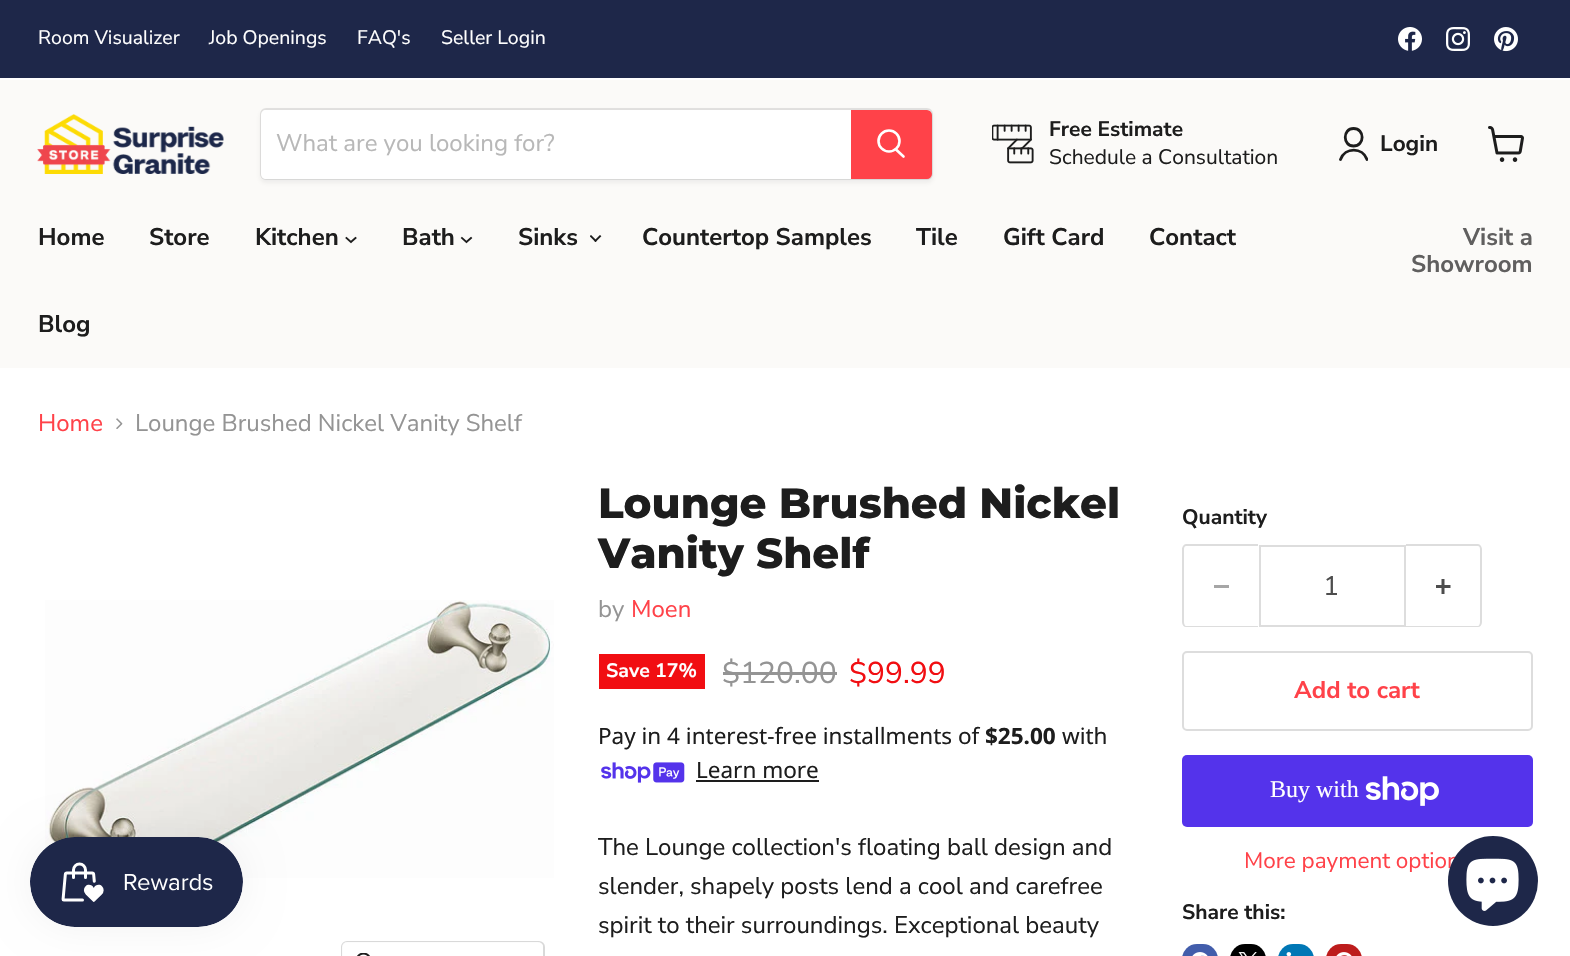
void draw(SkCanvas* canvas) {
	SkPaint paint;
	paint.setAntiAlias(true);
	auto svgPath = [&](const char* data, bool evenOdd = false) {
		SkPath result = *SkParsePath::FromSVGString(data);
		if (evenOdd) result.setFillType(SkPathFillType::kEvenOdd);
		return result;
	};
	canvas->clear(0xffffffff);
	paint.setColor(0xff1e2749);
	canvas->drawRect(SkRect::MakeXYWH(0, 0, 1570, 78), paint);
	SkFont f1(fontMgr->matchFamilyStyle("Nunito Sans", SkFontStyle::Normal()), 19.5);
	f1.setSubpixel(true);
	paint.setColor(0xffffffff);
	canvas->drawString("Room Visualizer", 38, 44, f1, paint);
	canvas->drawString("Job Openings", 209, 44, f1, paint);
	canvas->drawString("FAQ's", 357, 44, f1, paint);
	canvas->drawString("Seller Login", 441, 44, f1, paint);
	canvas->drawImageRect(SkImages::DeferredFromEncodedData(SkData::MakeFromFileName("img1.png")), SkRect::MakeXYWH(1398, 27, 24, 24), SkSamplingOptions());
	canvas->drawImageRect(SkImages::DeferredFromEncodedData(SkData::MakeFromFileName("img2.png")), SkRect::MakeXYWH(1446, 27, 24, 24), SkSamplingOptions());
	canvas->drawImageRect(SkImages::DeferredFromEncodedData(SkData::MakeFromFileName("img3.png")), SkRect::MakeXYWH(1494, 27, 24, 25), SkSamplingOptions());
	paint.setColor(0xfffbfaf8);
	canvas->drawRect(SkRect::MakeXYWH(0, 80, 1570, 288), paint);
	canvas->drawImageRect(SkImages::DeferredFromEncodedData(SkData::MakeFromFileName("img4.png")), SkRect::MakeXYWH(37, 114, 187, 60), SkSamplingOptions());
	paint.setColor(0x1c808080);
	paint.setMaskFilter(SkMaskFilter::MakeBlur(kNormal_SkBlurStyle, 2));
	canvas->drawRoundRect(SkRect::MakeXYWH(260, 111, 673, 72), 6, 6, paint);
	paint.setMaskFilter(nullptr);
	paint.setStroke(true);
	paint.setStrokeWidth(2);
	paint.setColor(0x33808080);
	canvas->drawRoundRect(SkRect::MakeXYWH(261, 109, 671, 70), 5, 5, paint);
	paint.setStroke(false);
	paint.setColor(0xffffffff);
	canvas->drawPath(svgPath("M266 110H851V179H266C263 179 261 177 261 174V115C261 112 263 110 266 110Z"), paint);
	SkFont f2(fontMgr->matchFamilyStyle("Nunito Sans", SkFontStyle::Normal()), 24);
	f2.setSubpixel(true);
	paint.setColor(0xffb8b8b8);
	canvas->drawString("What are you looking for?", 276, 151, f2, paint);
	paint.setColor(0xffff4249);
	canvas->drawPath(svgPath("M852 111H927C929 111 931 113 931 115V174C931 176 929 178 927 178H852Z"), paint);
	paint.setStroke(true);
	canvas->drawPath(svgPath("M852 111H927C929 111 931 113 931 115V174C931 176 929 178 927 178H852Z"), paint);
	paint.setStrokeWidth(2.6);
	paint.setStrokeCap(SkPaint::kRound_Cap);
	paint.setColor(0xffffffff);
	canvas->drawPath(svgPath("M903.5 156.5L896 149.5"), paint);
	paint.setStrokeCap(SkPaint::kButt_Cap);
	canvas->drawCircle(889, 141, 10.5, paint);
	canvas->drawImageRect(SkImages::DeferredFromEncodedData(SkData::MakeFromFileName("img5.png")), SkRect::MakeXYWH(992, 124, 42, 40), SkSamplingOptions());
	SkFont f3(fontMgr->matchFamilyStyle("Nunito Sans", SkFontStyle::Bold()), 21);
	f3.setSubpixel(true);
	paint.setStroke(false);
	paint.setColor(0xff1d1d1d);
	canvas->drawString("Free Estimate", 1049, 136, f3, paint);
	SkFont f4(fontMgr->matchFamilyStyle("Nunito Sans", SkFontStyle::Normal()), 21);
	f4.setSubpixel(true);
	canvas->drawString("Schedule a Consultation", 1049, 164, f4, paint);
	paint.setStroke(true);
	paint.setStrokeWidth(2.8);
	paint.setStrokeCap(SkPaint::kRound_Cap);
	paint.setStrokeJoin(SkPaint::kRound_Join);
	canvas->drawPath(svgPath("M1353.5 146C1365 146 1365 128.5 1353.5 128.5C1342.5 128.5 1342.5 146 1353.5 146Z"), paint);
	canvas->save();
	canvas->clipRect(SkRect::MakeXYWH(1338, 126, 30, 36));
	canvas->drawPath(svgPath("M1367 159.5C1362.5 147 1345 147 1340.5 159.5"), paint);
	canvas->restore();
	SkFont f5(fontMgr->matchFamilyStyle("Nunito Sans", SkFontStyle::Bold()), 22.5);
	f5.setSubpixel(true);
	paint.setStroke(false);
	canvas->drawString("Login", 1380, 151, f5, paint);
	canvas->drawImageRect(SkImages::DeferredFromEncodedData(SkData::MakeFromFileName("img6.png")), SkRect::MakeXYWH(1488, 126, 36, 36), SkSamplingOptions());
	SkFont f6(fontMgr->matchFamilyStyle("Nunito Sans", SkFontStyle::Bold()), 24);
	f6.setSubpixel(true);
	canvas->drawString("Home", 38, 245, f6, paint);
	canvas->drawString("Store", 149, 245, f6, paint);
	canvas->drawString("Kitchen", 255, 245, f6, paint);
	paint.setStroke(true);
	paint.setStrokeWidth(1.9);
	paint.setStrokeCap(SkPaint::kSquare_Cap);
	paint.setStrokeJoin(SkPaint::kMiter_Join);
	canvas->drawPath(svgPath("M351 242L355.5 238M351 242L346.5 238"), paint);
	paint.setStroke(false);
	canvas->drawString("Bath", 402, 245, f6, paint);
	paint.setStroke(true);
	canvas->drawPath(svgPath("M466.5 242L471 238M466.5 242L462 238"), paint);
	paint.setStroke(false);
	canvas->drawString("Sinks", 518, 245, f6, paint);
	canvas->drawImageRect(SkImages::DeferredFromEncodedData(SkData::MakeFromFileName("img7.png")), SkRect::MakeXYWH(590, 235, 12, 7), SkSamplingOptions());
	canvas->drawString("Countertop Samples", 642, 245, f6, paint);
	canvas->drawString("Tile", 916, 245, f6, paint);
	canvas->drawString("Gift Card", 1003, 245, f6, paint);
	canvas->drawString("Contact", 1149, 245, f6, paint);
	canvas->drawString("Blog", 38, 332, f6, paint);
	paint.setColor(0xff605f5f);
	canvas->drawString("Visit a", 1463, 245, f6, paint);
	canvas->drawString("Showroom", 1411, 272, f6, paint);
	paint.setColor(0xffff4249);
	canvas->drawString("Home", 38, 431, f2, paint);
	canvas->drawImageRect(SkImages::DeferredFromEncodedData(SkData::MakeFromFileName("img8.png")), SkRect::MakeXYWH(116, 418, 7, 11), SkSamplingOptions());
	paint.setColor(0xff949494);
	canvas->drawString("Lounge Brushed Nickel Vanity Shelf", 135, 431, f2, paint);
	canvas->drawImageRect(SkImages::DeferredFromEncodedData(SkData::MakeFromFileName("img9.png")), SkRect::MakeXYWH(45, 600, 509, 278), SkSamplingOptions());
	paint.setStroke(true);
	paint.setStrokeWidth(2);
	paint.setStrokeCap(SkPaint::kButt_Cap);
	paint.setColor(0xffd9d9d9);
	canvas->drawRoundRect(SkRect::MakeXYWH(342, 942, 202, 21), 5, 5, paint);
	paint.setStroke(false);
	paint.setColor(0xe6ffffff);
	canvas->drawRoundRect(SkRect::MakeXYWH(342, 942, 201, 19), 5, 5, paint);
	canvas->drawImageRect(SkImages::DeferredFromEncodedData(SkData::MakeFromFileName("img10.png")), SkRect::MakeXYWH(357, 953, 13, 3), SkSamplingOptions());
	SkFont f7(fontMgr->matchFamilyStyle("Montserrat", SkFontStyle(800, SkFontStyle::kNormal_Width, SkFontStyle::kUpright_Slant)), 42);
	f7.setSubpixel(true);
	paint.setColor(0xff1d1d1d);
	canvas->drawString("Lounge Brushed Nickel", 598, 518, f7, paint);
	canvas->drawString("Vanity Shelf", 598, 568, f7, paint);
	paint.setColor(0xff949494);
	canvas->drawString("by", 598, 617, f2, paint);
	paint.setColor(0xffff4249);
	canvas->drawString("Moen", 631, 617, f2, paint);
	paint.setColor(0xfff10e12);
	canvas->drawRect(SkRect::MakeXYWH(599, 654, 106, 35), paint);
	SkFont f8(fontMgr->matchFamilyStyle("Nunito Sans", SkFontStyle::Bold()), 19.5);
	f8.setSubpixel(true);
	paint.setColor(0xffffffff);
	canvas->drawString("Save 17%", 606, 677, f8, paint);
	SkFont f9(fontMgr->matchFamilyStyle("Nunito Sans", SkFontStyle::Normal()), 30);
	f9.setSubpixel(true);
	paint.setColor(0xff949494);
	canvas->drawString("$120.00", 722, 683, f9, paint);
	canvas->drawRect(SkRect::MakeXYWH(723, 672, 114, 3), paint);
	paint.setColor(0xfff10e12);
	canvas->drawString("$99.99", 849, 683, f9, paint);
	SkFont f10(fontMgr->matchFamilyStyle("Noto Sans", SkFontStyle::Normal()), 22.5);
	f10.setSubpixel(true);
	paint.setColor(0xff1d1d1d);
	canvas->drawString("Pay in 4 interest-free installments of", 598, 744, f10, paint);
	SkFont f11(fontMgr->matchFamilyStyle("Noto Sans", SkFontStyle::Bold()), 22.5);
	f11.setSubpixel(true);
	canvas->drawString("$25.00", 985, 744, f11, paint);
	canvas->drawString("with", 1062, 744, f10, paint);
	canvas->drawImageRect(SkImages::DeferredFromEncodedData(SkData::MakeFromFileName("img11.png")), SkRect::MakeXYWH(601, 762, 84, 21), SkSamplingOptions());
	canvas->drawString("Learn more", 696, 778, f10, paint);
	canvas->drawRect(SkRect::MakeXYWH(696, 780, 123, 2), paint);
	canvas->drawString("The Lounge collection's floating ball design and", 598, 855, f2, paint);
	canvas->drawString("slender, shapely posts lend a cool and carefree", 598, 894, f2, paint);
	canvas->drawString("spirit to their surroundings. Exceptional beauty", 598, 933, f2, paint);
	canvas->drawString("Quantity", 1182, 524, f3, paint);
	paint.setColor(0xffdddddd);
	canvas->drawPath(svgPath("M1186 544H1258V627H1186C1184 627 1182 625 1182 622V549C1182 547 1184 544 1186 544ZM1186 546H1258V626H1186C1185 626 1184 624 1184 622V549C1184 547 1185 546 1186 546Z", true), paint);
	paint.setColor(0xffa6a6a6);
	canvas->drawRect(SkRect::MakeXYWH(1214, 585, 15, 3), paint);
	paint.setStroke(true);
	paint.setColor(0xffdddddd);
	canvas->drawRect(SkRect::MakeXYWH(1260, 546, 145, 80), paint);
	SkFont f12(fontMgr->matchFamilyStyle("Nunito Sans", SkFontStyle::Normal()), 27);
	f12.setSubpixel(true);
	paint.setStroke(false);
	paint.setColor(0xff4d4d4d);
	canvas->drawString("1", 1323, 595, f12, paint);
	paint.setColor(0xffdddddd);
	canvas->drawPath(svgPath("M1406 544H1478C1480 544 1482 547 1482 549V622C1482 625 1480 627 1478 627H1406ZM1406 546H1478C1479 546 1480 547 1480 549V622C1480 624 1479 626 1478 626H1406Z", true), paint);
	canvas->drawImageRect(SkImages::DeferredFromEncodedData(SkData::MakeFromFileName("img12.png")), SkRect::MakeXYWH(1436, 579, 15, 15), SkSamplingOptions());
	paint.setStroke(true);
	canvas->drawRoundRect(SkRect::MakeXYWH(1183, 652, 349, 78), 4, 4, paint);
	paint.setStroke(false);
	paint.setColor(0xffff4249);
	canvas->drawString("Add to cart", 1294, 698, f6, paint);
	paint.setColor(0xff5433eb);
	canvas->drawRoundRect(SkRect::MakeXYWH(1182, 755, 351, 72), 5, 5, paint);
	SkFont f13(fontMgr->matchFamilyStyle("Liberation Serif", SkFontStyle::Normal()), 24);
	f13.setSubpixel(true);
	paint.setColor(0xffffffff);
	canvas->drawString("Buy with", 1270, 797, f13, paint);
	canvas->drawImageRect(SkImages::DeferredFromEncodedData(SkData::MakeFromFileName("img13.png")), SkRect::MakeXYWH(1365, 776, 74, 30), SkSamplingOptions());
	SkFont f14(fontMgr->matchFamilyStyle("Nunito Sans", SkFontStyle::Normal()), 22.5);
	f14.setSubpixel(true);
	paint.setColor(0xffff4249);
	canvas->drawString("More payment option", 1244, 868, f14, paint);
	paint.setColor(0xff1d1d1d);
	canvas->drawString("Share this:", 1182, 919, f3, paint);
	paint.setColor(0xff425dab);
	canvas->drawRoundRect(SkRect::MakeXYWH(1182, 944, 36, 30), 18, 18, paint);
	canvas->drawImageRect(SkImages::DeferredFromEncodedData(SkData::MakeFromFileName("img14.png")), SkRect::MakeXYWH(1192, 952, 16, 4), SkSamplingOptions());
	paint.setColor(0xff000000);
	canvas->drawRoundRect(SkRect::MakeXYWH(1230, 944, 36, 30), 18, 18, paint);
	canvas->drawImageRect(SkImages::DeferredFromEncodedData(SkData::MakeFromFileName("img15.png")), SkRect::MakeXYWH(1238, 952, 19, 4), SkSamplingOptions());
	paint.setColor(0xff0077b5);
	canvas->drawRoundRect(SkRect::MakeXYWH(1278, 944, 36, 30), 18, 18, paint);
	canvas->drawImageRect(SkImages::DeferredFromEncodedData(SkData::MakeFromFileName("img16.png")), SkRect::MakeXYWH(1286, 952, 6, 4), SkSamplingOptions());
	paint.setColor(0xffbd1c1c);
	canvas->drawRoundRect(SkRect::MakeXYWH(1326, 944, 36, 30), 18, 18, paint);
	canvas->drawImageRect(SkImages::DeferredFromEncodedData(SkData::MakeFromFileName("img17.png")), SkRect::MakeXYWH(1336, 952, 16, 4), SkSamplingOptions());
	paint.setColor(0x0d000000);
	paint.setMaskFilter(SkMaskFilter::MakeBlur(kNormal_SkBlurStyle, 19));
	canvas->drawRoundRect(SkRect::MakeXYWH(30, 837, 213, 90), 45, 45, paint);
	paint.setMaskFilter(nullptr);
	canvas->drawImageRect(SkImages::DeferredFromEncodedData(SkData::MakeFromFileName("img18.png")), SkRect::MakeXYWH(30, 837, 213, 90), SkSamplingOptions());
	paint.setColor(0xff1e2749);
	canvas->drawCircle(1493, 881, 45, paint);
	canvas->drawImageRect(SkImages::DeferredFromEncodedData(SkData::MakeFromFileName("img19.png")), SkRect::MakeXYWH(1466, 858, 53, 53), SkSamplingOptions());
}
